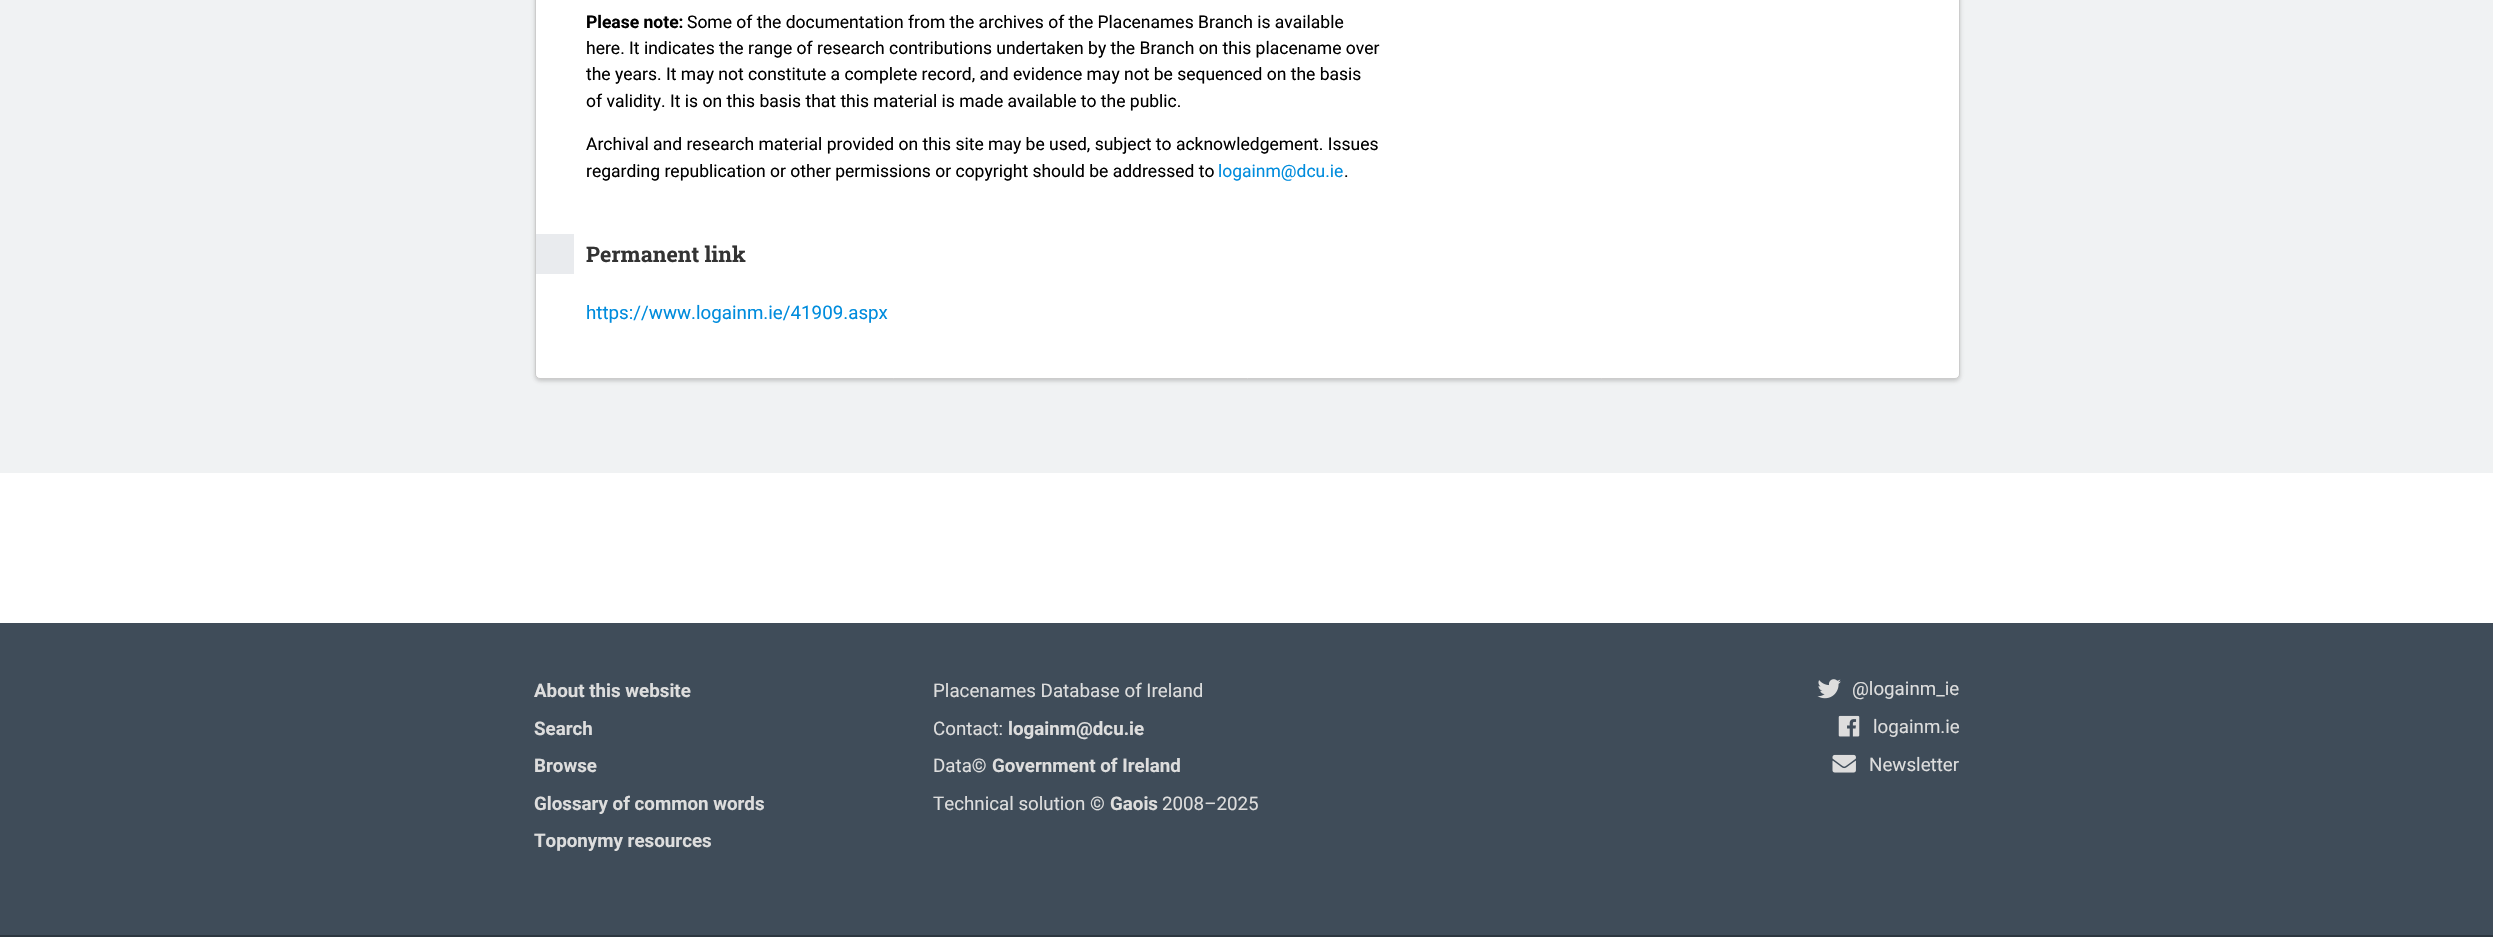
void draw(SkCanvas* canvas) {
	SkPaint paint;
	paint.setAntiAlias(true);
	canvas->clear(0xfff0f2f3);
	paint.setColor(0x80969696);
	paint.setMaskFilter(SkMaskFilter::MakeBlur(kNormal_SkBlurStyle, 2));
	canvas->drawRoundRect(SkRect::MakeXYWH(535, -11, 1425, 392), 5, 5, paint);
	paint.setMaskFilter(nullptr);
	paint.setColor(0xffffffff);
	canvas->drawRoundRect(SkRect::MakeXYWH(535.5, -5.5, 1424, 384), 4.5, 4.5, paint);
	paint.setStroke(true);
	paint.setStrokeWidth(1);
	paint.setColor(0xffcccccc);
	canvas->drawRoundRect(SkRect::MakeXYWH(535.5, -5.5, 1424, 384), 4.5, 4.5, paint);
	SkFont f1(fontMgr->matchFamilyStyle("Roboto", SkFontStyle::Bold()), 17.5);
	f1.setSubpixel(true);
	paint.setStroke(false);
	paint.setColor(0xff000000);
	canvas->drawString("Please note:", 586, 28, f1, paint);
	SkFont f2(fontMgr->matchFamilyStyle("Roboto", SkFontStyle::Normal()), 17.5);
	f2.setSubpixel(true);
	canvas->drawString("Some of the documentation from the archives of the Placenames Branch is available", 687, 28, f2, paint);
	canvas->drawString("here. It indicates the range of research contributions undertaken by the Branch on this placename over", 586, 54, f2, paint);
	canvas->drawString("the years. It may not constitute a complete record, and evidence may not be sequenced on the basis", 586, 80, f2, paint);
	canvas->drawString("of validity. It is on this basis that this material is made available to the public.", 586, 107, f2, paint);
	canvas->drawString("Archival and research material provided on this site may be used, subject to acknowledgement. Issues", 586, 150, f2, paint);
	canvas->drawString("regarding republication or other permissions or copyright should be addressed to", 586, 177, f2, paint);
	paint.setColor(0xff008cdd);
	canvas->drawString("logainm@dcu.ie", 1218, 177, f2, paint);
	paint.setColor(0xff000000);
	canvas->drawString(".", 1344, 177, f2, paint);
	paint.setColor(0xffe9ebee);
	canvas->drawRect(SkRect::MakeXYWH(536, 234, 38, 40), paint);
	SkFont f3(fontMgr->matchFamilyStyle("Roboto Slab", SkFontStyle::Bold()), 21.5);
	f3.setSubpixel(true);
	paint.setColor(0xff333333);
	canvas->drawString("Permanent link", 586, 262, f3, paint);
	SkFont f4(fontMgr->matchFamilyStyle("Roboto", SkFontStyle::Normal()), 18.75);
	f4.setSubpixel(true);
	paint.setColor(0xff008cdd);
	canvas->drawString("https://www.logainm.ie/41909.aspx", 586, 319, f4, paint);
	paint.setColor(0xffffffff);
	canvas->drawRect(SkRect::MakeXYWH(0, 473, 2493, 150), paint);
	paint.setColor(0xff3f4c59);
	canvas->drawRect(SkRect::MakeXYWH(0, 623, 2493, 312), paint);
	SkFont f5(fontMgr->matchFamilyStyle("Roboto", SkFontStyle::Bold()), 18.75);
	f5.setSubpixel(true);
	paint.setColor(0xffdddddd);
	canvas->drawString("About this website", 534, 697, f5, paint);
	canvas->drawString("Search", 534, 735, f5, paint);
	canvas->drawString("Browse", 534, 772, f5, paint);
	canvas->drawString("Glossary of common words", 534, 810, f5, paint);
	canvas->drawString("Toponymy resources", 534, 847, f5, paint);
	canvas->drawString("Placenames Database of Ireland", 933, 697, f4, paint);
	canvas->drawString("Contact:", 933, 735, f4, paint);
	canvas->drawString("logainm@dcu.ie", 1008, 735, f5, paint);
	canvas->drawString("Data©", 933, 772, f4, paint);
	canvas->drawString("Government of Ireland", 992, 772, f5, paint);
	canvas->drawString("Technical solution ©", 933, 810, f4, paint);
	canvas->drawString("Gaois", 1110, 810, f5, paint);
	canvas->drawString("2008–2025", 1162, 810, f4, paint);
	canvas->drawImageRect(SkImages::DeferredFromEncodedData(SkData::MakeFromFileName("img1.png")), SkRect::MakeXYWH(1817, 679, 24, 20), SkSamplingOptions());
	canvas->drawString("@logainm_ie", 1852, 695, f4, paint);
	canvas->drawImageRect(SkImages::DeferredFromEncodedData(SkData::MakeFromFileName("img2.png")), SkRect::MakeXYWH(1838, 715, 22, 22), SkSamplingOptions());
	canvas->drawString("logainm.ie", 1873, 733, f4, paint);
	canvas->drawImageRect(SkImages::DeferredFromEncodedData(SkData::MakeFromFileName("img3.png")), SkRect::MakeXYWH(1832, 754, 24, 19), SkSamplingOptions());
	canvas->drawString("Newsletter", 1869, 771, f4, paint);
	paint.setColor(0xff2d3740);
	canvas->drawRect(SkRect::MakeXYWH(0, 935, 2493, 2), paint);
}
